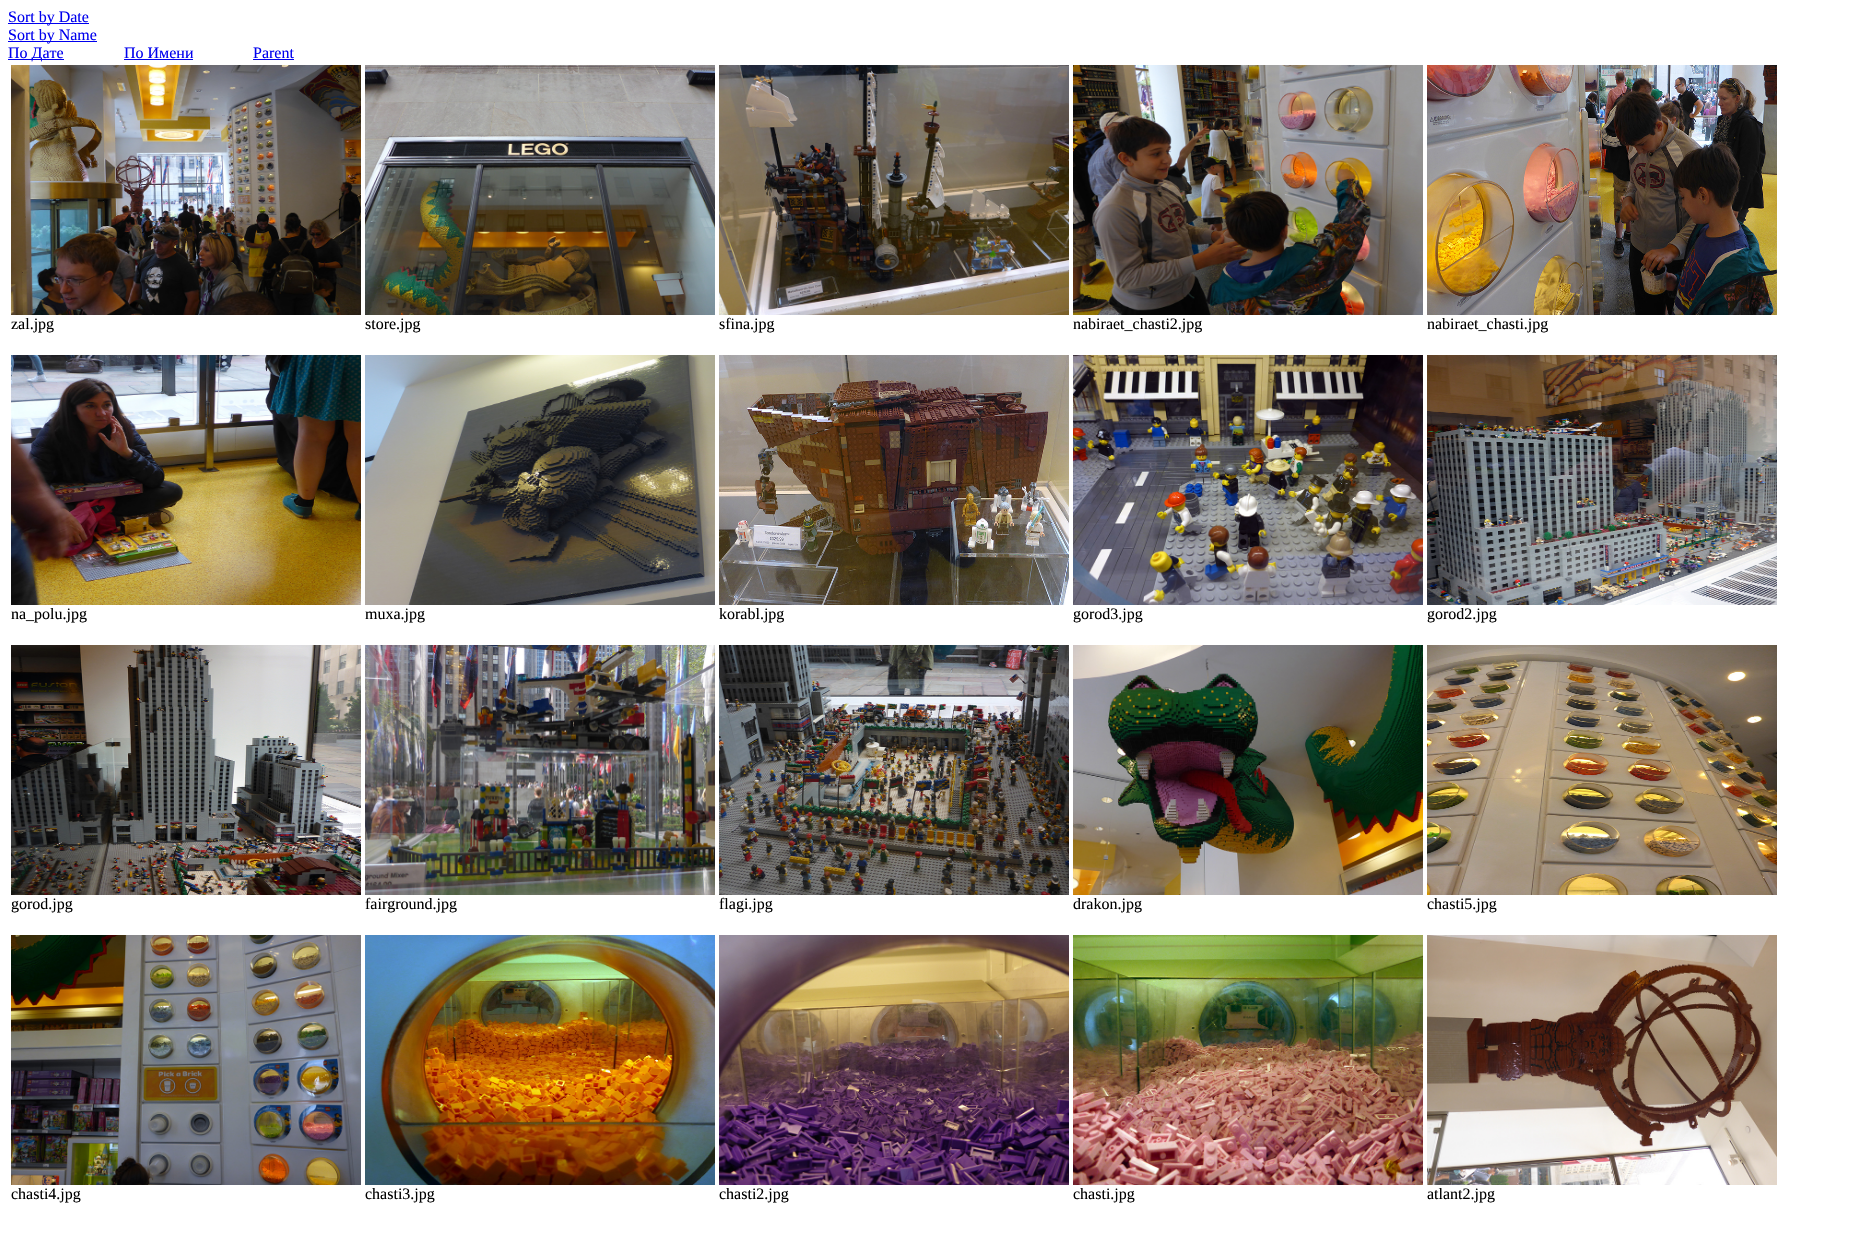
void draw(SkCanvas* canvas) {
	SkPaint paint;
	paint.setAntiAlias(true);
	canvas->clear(0xffffffff);
	paint.setColor(0xff0000ee);
	canvas->drawRect(SkRect::MakeXYWH(8, 23, 81, 1), paint);
	SkFont f1(fontMgr->matchFamilyStyle("Liberation Serif", SkFontStyle::Normal()), 16);
	f1.setSubpixel(true);
	canvas->drawString("Sort by Date", 8, 22, f1, paint);
	canvas->drawRect(SkRect::MakeXYWH(8, 41, 89, 1), paint);
	canvas->drawString("Sort by Name", 8, 40, f1, paint);
	canvas->drawRect(SkRect::MakeXYWH(8, 59, 56, 1), paint);
	canvas->drawString("По Дате", 8, 58, f1, paint);
	canvas->drawString("По Имени", 124, 58, f1, paint);
	canvas->drawRect(SkRect::MakeXYWH(124, 59, 69, 1), paint);
	canvas->drawString("Parent", 253, 58, f1, paint);
	canvas->drawRect(SkRect::MakeXYWH(253, 59, 41, 1), paint);
	canvas->drawImageRect(SkImages::DeferredFromEncodedData(SkData::MakeFromFileName("img1.png")), SkRect::MakeXYWH(11, 65, 350, 250), SkSamplingOptions());
	paint.setColor(0xff000000);
	canvas->drawString("zal.jpg", 11, 329, f1, paint);
	canvas->drawImageRect(SkImages::DeferredFromEncodedData(SkData::MakeFromFileName("img2.png")), SkRect::MakeXYWH(365, 65, 350, 250), SkSamplingOptions());
	canvas->drawString("store.jpg", 365, 329, f1, paint);
	canvas->drawImageRect(SkImages::DeferredFromEncodedData(SkData::MakeFromFileName("img3.png")), SkRect::MakeXYWH(719, 65, 350, 250), SkSamplingOptions());
	canvas->drawString("sfina.jpg", 719, 329, f1, paint);
	canvas->drawImageRect(SkImages::DeferredFromEncodedData(SkData::MakeFromFileName("img4.png")), SkRect::MakeXYWH(1073, 65, 350, 250), SkSamplingOptions());
	canvas->drawString("nabiraet_chasti2.jpg", 1073, 329, f1, paint);
	canvas->drawImageRect(SkImages::DeferredFromEncodedData(SkData::MakeFromFileName("img5.png")), SkRect::MakeXYWH(1427, 65, 350, 250), SkSamplingOptions());
	canvas->drawString("nabiraet_chasti.jpg", 1427, 329, f1, paint);
	canvas->drawImageRect(SkImages::DeferredFromEncodedData(SkData::MakeFromFileName("img6.png")), SkRect::MakeXYWH(11, 355, 350, 250), SkSamplingOptions());
	canvas->drawString("na_polu.jpg", 11, 619, f1, paint);
	canvas->drawImageRect(SkImages::DeferredFromEncodedData(SkData::MakeFromFileName("img7.png")), SkRect::MakeXYWH(365, 355, 350, 250), SkSamplingOptions());
	canvas->drawString("muxa.jpg", 365, 619, f1, paint);
	canvas->drawImageRect(SkImages::DeferredFromEncodedData(SkData::MakeFromFileName("img8.png")), SkRect::MakeXYWH(719, 355, 350, 250), SkSamplingOptions());
	canvas->drawString("korabl.jpg", 719, 619, f1, paint);
	canvas->drawImageRect(SkImages::DeferredFromEncodedData(SkData::MakeFromFileName("img9.png")), SkRect::MakeXYWH(1073, 355, 350, 250), SkSamplingOptions());
	canvas->drawString("gorod3.jpg", 1073, 619, f1, paint);
	canvas->drawImageRect(SkImages::DeferredFromEncodedData(SkData::MakeFromFileName("img10.png")), SkRect::MakeXYWH(1427, 355, 350, 250), SkSamplingOptions());
	canvas->drawString("gorod2.jpg", 1427, 619, f1, paint);
	canvas->drawImageRect(SkImages::DeferredFromEncodedData(SkData::MakeFromFileName("img11.png")), SkRect::MakeXYWH(11, 645, 350, 250), SkSamplingOptions());
	canvas->drawString("gorod.jpg", 11, 909, f1, paint);
	canvas->drawImageRect(SkImages::DeferredFromEncodedData(SkData::MakeFromFileName("img12.png")), SkRect::MakeXYWH(365, 645, 350, 250), SkSamplingOptions());
	canvas->drawString("fairground.jpg", 365, 909, f1, paint);
	canvas->drawImageRect(SkImages::DeferredFromEncodedData(SkData::MakeFromFileName("img13.png")), SkRect::MakeXYWH(719, 645, 350, 250), SkSamplingOptions());
	canvas->drawString("flagi.jpg", 719, 909, f1, paint);
	canvas->drawImageRect(SkImages::DeferredFromEncodedData(SkData::MakeFromFileName("img14.png")), SkRect::MakeXYWH(1073, 645, 350, 250), SkSamplingOptions());
	canvas->drawString("drakon.jpg", 1073, 909, f1, paint);
	canvas->drawImageRect(SkImages::DeferredFromEncodedData(SkData::MakeFromFileName("img15.png")), SkRect::MakeXYWH(1427, 645, 350, 250), SkSamplingOptions());
	canvas->drawString("chasti5.jpg", 1427, 909, f1, paint);
	canvas->drawImageRect(SkImages::DeferredFromEncodedData(SkData::MakeFromFileName("img16.png")), SkRect::MakeXYWH(11, 935, 350, 250), SkSamplingOptions());
	canvas->drawString("chasti4.jpg", 11, 1199, f1, paint);
	canvas->drawImageRect(SkImages::DeferredFromEncodedData(SkData::MakeFromFileName("img17.png")), SkRect::MakeXYWH(365, 935, 350, 250), SkSamplingOptions());
	canvas->drawString("chasti3.jpg", 365, 1199, f1, paint);
	canvas->drawImageRect(SkImages::DeferredFromEncodedData(SkData::MakeFromFileName("img18.png")), SkRect::MakeXYWH(719, 935, 350, 250), SkSamplingOptions());
	canvas->drawString("chasti2.jpg", 719, 1199, f1, paint);
	canvas->drawImageRect(SkImages::DeferredFromEncodedData(SkData::MakeFromFileName("img19.png")), SkRect::MakeXYWH(1073, 935, 350, 250), SkSamplingOptions());
	canvas->drawString("chasti.jpg", 1073, 1199, f1, paint);
	canvas->drawImageRect(SkImages::DeferredFromEncodedData(SkData::MakeFromFileName("img20.png")), SkRect::MakeXYWH(1427, 935, 350, 250), SkSamplingOptions());
	canvas->drawString("atlant2.jpg", 1427, 1199, f1, paint);
}
